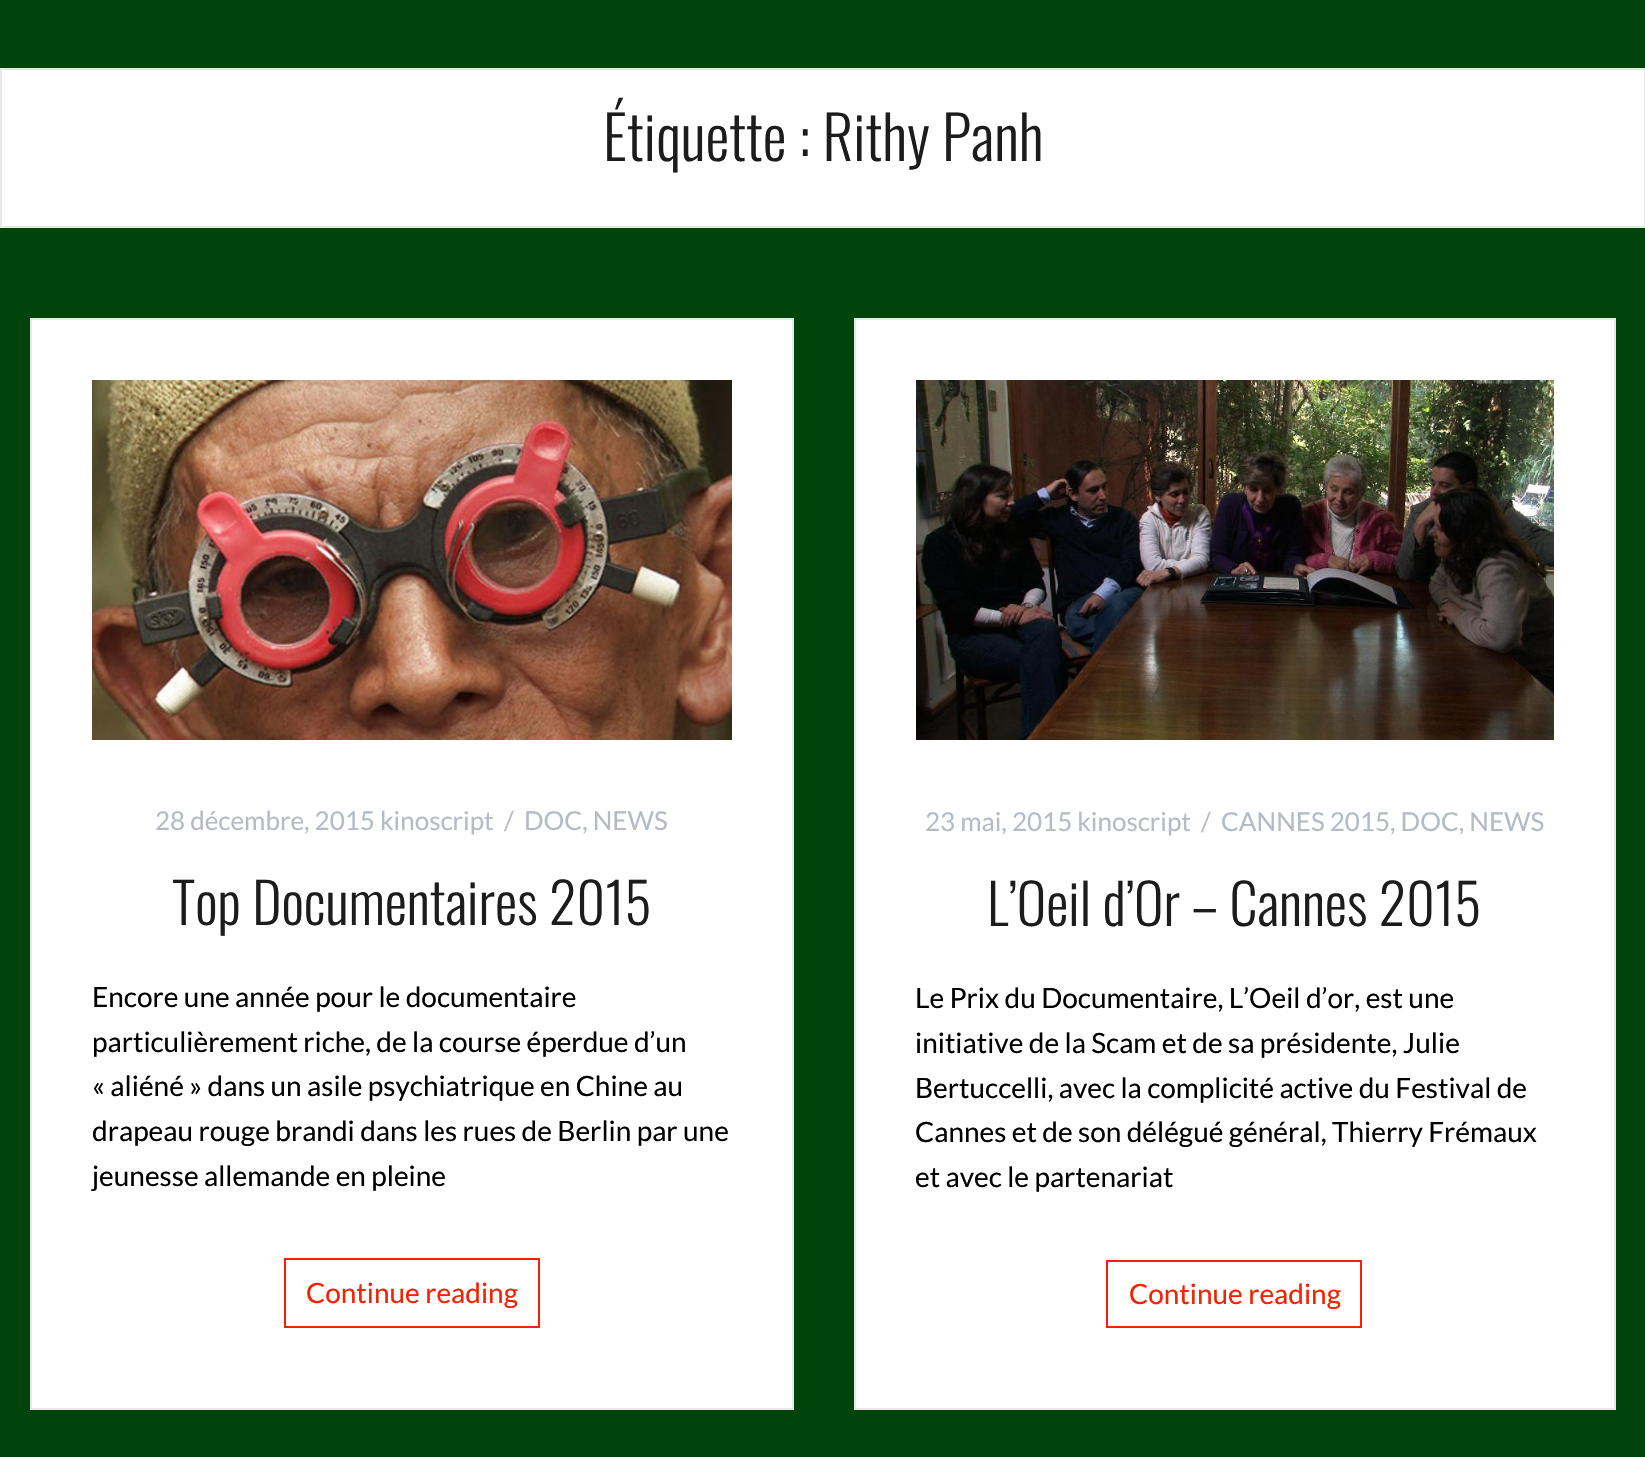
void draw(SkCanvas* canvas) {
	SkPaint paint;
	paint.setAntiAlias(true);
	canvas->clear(0xff00440b);
	paint.setColor(0xffffffff);
	canvas->drawRect(SkRect::MakeXYWH(1, 69, 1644, 158), paint);
	paint.setStroke(true);
	paint.setStrokeWidth(2);
	paint.setColor(0xffe8e8e8);
	canvas->drawRect(SkRect::MakeXYWH(1, 69, 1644, 158), paint);
	SkFont f1(fontMgr->matchFamilyStyle("Oswald", SkFontStyle(300, SkFontStyle::kNormal_Width, SkFontStyle::kUpright_Slant)), 60);
	f1.setSubpixel(true);
	paint.setStroke(false);
	paint.setColor(0xff1c1c1c);
	canvas->drawString("Étiquette : Rithy Panh", 603, 161, f1, paint);
	paint.setColor(0xffffffff);
	canvas->drawRect(SkRect::MakeXYWH(31, 319, 762, 1090), paint);
	paint.setStroke(true);
	paint.setColor(0xffe8e8e8);
	canvas->drawRect(SkRect::MakeXYWH(31, 319, 762, 1090), paint);
	canvas->drawImageRect(SkImages::DeferredFromEncodedData(SkData::MakeFromFileName("img1.png")), SkRect::MakeXYWH(92, 380, 640, 360), SkSamplingOptions());
	SkFont f2(fontMgr->matchFamilyStyle("Lato", SkFontStyle::Normal()), 26);
	f2.setSubpixel(true);
	paint.setStroke(false);
	paint.setColor(0xffb5bbc5);
	canvas->drawString("28 décembre, 2015 kinoscript", 155, 830, f2, paint);
	canvas->drawString("/", 504, 830, f2, paint);
	canvas->drawString("DOC, NEWS", 524, 830, f2, paint);
	SkFont f3(fontMgr->matchFamilyStyle("Oswald", SkFontStyle(300, SkFontStyle::kNormal_Width, SkFontStyle::kUpright_Slant)), 56);
	f3.setSubpixel(true);
	paint.setColor(0xff1c1c1c);
	canvas->drawString("Top Documentaires 2015", 172, 925, f3, paint);
	SkFont f4(fontMgr->matchFamilyStyle("Lato", SkFontStyle::Normal()), 28);
	f4.setSubpixel(true);
	paint.setColor(0xff000000);
	canvas->drawString("Encore une année pour le documentaire", 92, 1007, f4, paint);
	canvas->drawString("particulièrement riche, de la course éperdue d’un", 92, 1052, f4, paint);
	canvas->drawString("« aliéné » dans un asile psychiatrique en Chine au", 92, 1096, f4, paint);
	canvas->drawString("drapeau rouge brandi dans les rues de Berlin par une", 92, 1141, f4, paint);
	canvas->drawString("jeunesse allemande en pleine", 92, 1186, f4, paint);
	paint.setStroke(true);
	paint.setColor(0xfff22202);
	canvas->drawRect(SkRect::MakeXYWH(285, 1259, 254, 68), paint);
	paint.setStroke(false);
	canvas->drawString("Continue reading", 306, 1303, f4, paint);
	paint.setColor(0xffffffff);
	canvas->drawRect(SkRect::MakeXYWH(855, 319, 760, 1090), paint);
	paint.setStroke(true);
	paint.setColor(0xffe8e8e8);
	canvas->drawRect(SkRect::MakeXYWH(855, 319, 760, 1090), paint);
	canvas->drawImageRect(SkImages::DeferredFromEncodedData(SkData::MakeFromFileName("img2.png")), SkRect::MakeXYWH(916, 380, 638, 360), SkSamplingOptions());
	paint.setStroke(false);
	paint.setColor(0xffb5bbc5);
	canvas->drawString("23 mai, 2015 kinoscript", 925, 831, f2, paint);
	canvas->drawString("/", 1201, 831, f2, paint);
	canvas->drawString("CANNES 2015, DOC, NEWS", 1221, 831, f2, paint);
	paint.setColor(0xff1c1c1c);
	canvas->drawString("L’Oeil d’Or – Cannes 2015", 987, 926, f3, paint);
	paint.setColor(0xff000000);
	canvas->drawString("Le Prix du Documentaire, L’Oeil d’or, est une", 915, 1008, f4, paint);
	canvas->drawString("initiative de la Scam et de sa présidente, Julie", 915, 1053, f4, paint);
	canvas->drawString("Bertuccelli, avec la complicité active du Festival de", 915, 1098, f4, paint);
	canvas->drawString("Cannes et de son délégué général, Thierry Frémaux", 915, 1142, f4, paint);
	canvas->drawString("et avec le partenariat", 915, 1187, f4, paint);
	paint.setStroke(true);
	paint.setColor(0xfff22202);
	canvas->drawRect(SkRect::MakeXYWH(1107, 1261, 254, 66), paint);
	paint.setStroke(false);
	canvas->drawString("Continue reading", 1129, 1304, f4, paint);
}
